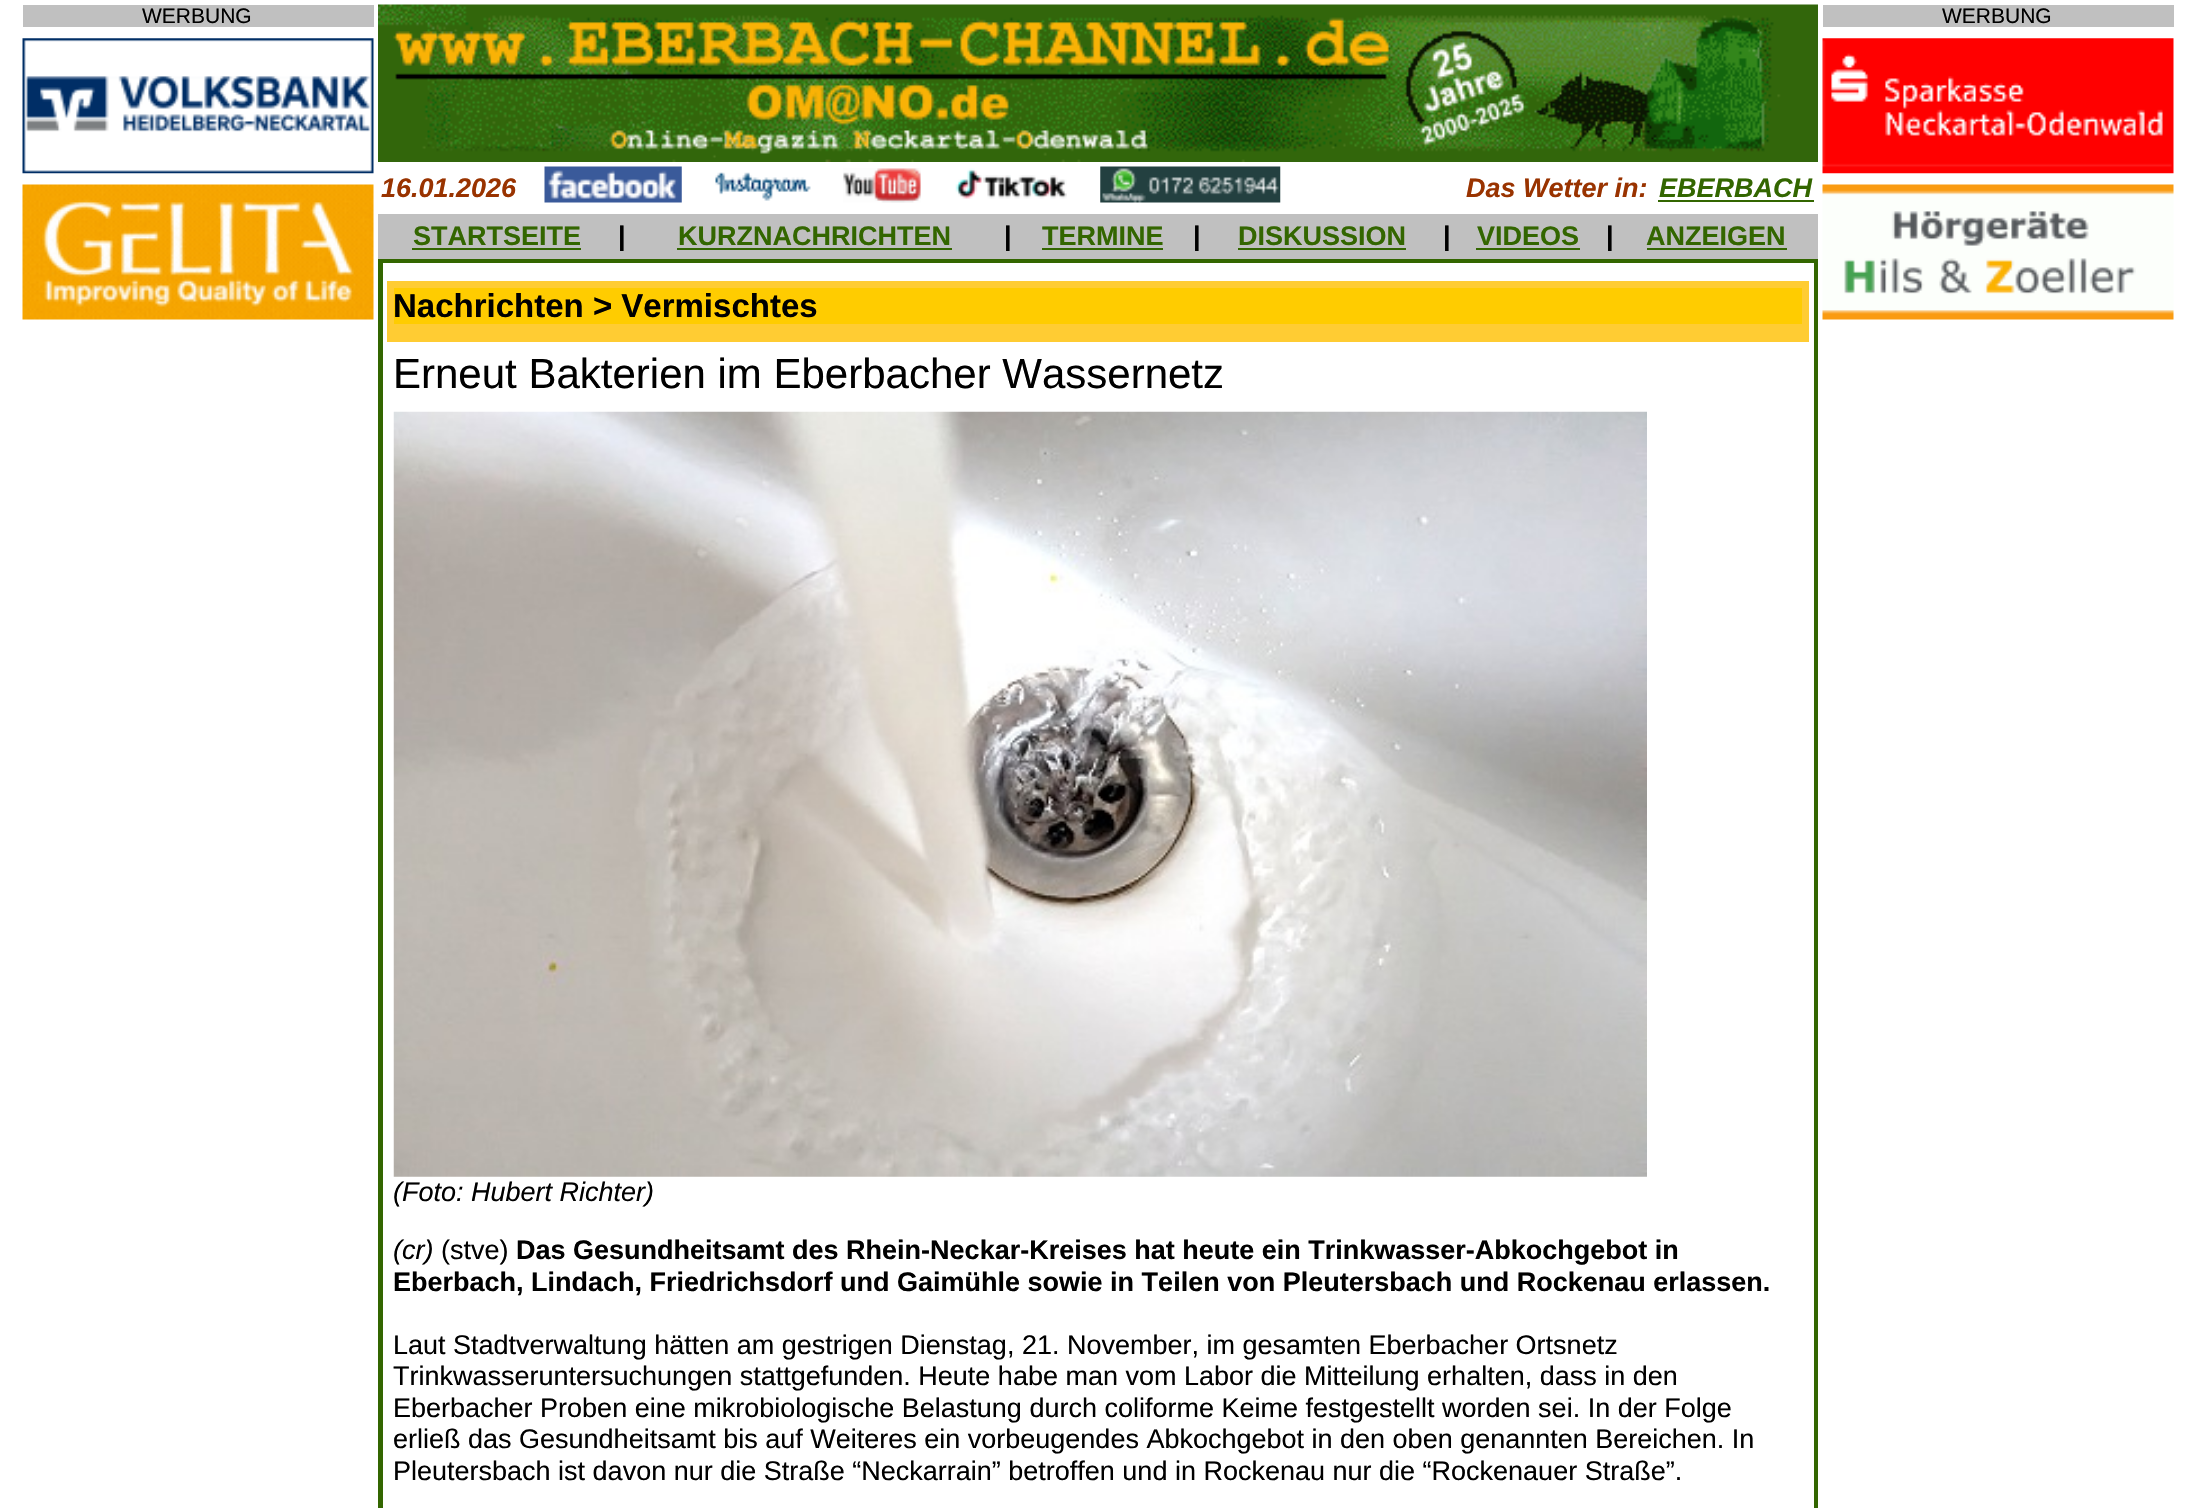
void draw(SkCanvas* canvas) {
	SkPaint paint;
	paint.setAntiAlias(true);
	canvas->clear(0xffffffff);
	paint.setColor(0xffc0c0c0);
	canvas->drawRect(SkRect::MakeXYWH(23, 5, 351, 22), paint);
	SkFont f1(fontMgr->matchFamilyStyle("Liberation Sans", SkFontStyle::Normal()), 21);
	f1.setSubpixel(true);
	paint.setColor(0xff000000);
	canvas->drawString("WERBUNG", 142, 23, f1, paint);
	canvas->drawImageRect(SkImages::DeferredFromEncodedData(SkData::MakeFromFileName("img1.png")), SkRect::MakeXYWH(22, 38, 352, 136), SkSamplingOptions());
	canvas->drawImageRect(SkImages::DeferredFromEncodedData(SkData::MakeFromFileName("img2.png")), SkRect::MakeXYWH(22, 184, 352, 136), SkSamplingOptions());
	paint.setColor(0xffc0c0c0);
	canvas->drawRect(SkRect::MakeXYWH(1823, 5, 351, 22), paint);
	paint.setColor(0xff000000);
	canvas->drawString("WERBUNG", 1942, 23, f1, paint);
	canvas->drawImageRect(SkImages::DeferredFromEncodedData(SkData::MakeFromFileName("img3.png")), SkRect::MakeXYWH(1822, 38, 352, 136), SkSamplingOptions());
	canvas->drawImageRect(SkImages::DeferredFromEncodedData(SkData::MakeFromFileName("img4.png")), SkRect::MakeXYWH(1822, 184, 352, 136), SkSamplingOptions());
	canvas->drawImageRect(SkImages::DeferredFromEncodedData(SkData::MakeFromFileName("img5.png")), SkRect::MakeXYWH(378, 4, 1440, 158), SkSamplingOptions());
	SkFont f2(fontMgr->matchFamilyStyle("Liberation Sans", SkFontStyle::BoldItalic()), 27);
	f2.setSubpixel(true);
	paint.setColor(0xff993300);
	canvas->drawString("16.01.2026", 381, 197, f2, paint);
	canvas->drawImageRect(SkImages::DeferredFromEncodedData(SkData::MakeFromFileName("img6.png")), SkRect::MakeXYWH(544, 166, 138, 37), SkSamplingOptions());
	canvas->drawImageRect(SkImages::DeferredFromEncodedData(SkData::MakeFromFileName("img7.png")), SkRect::MakeXYWH(715, 172, 96, 29), SkSamplingOptions());
	canvas->drawImageRect(SkImages::DeferredFromEncodedData(SkData::MakeFromFileName("img8.png")), SkRect::MakeXYWH(843, 168, 78, 35), SkSamplingOptions());
	canvas->drawImageRect(SkImages::DeferredFromEncodedData(SkData::MakeFromFileName("img9.png")), SkRect::MakeXYWH(955, 168, 112, 31), SkSamplingOptions());
	canvas->drawImageRect(SkImages::DeferredFromEncodedData(SkData::MakeFromFileName("img10.png")), SkRect::MakeXYWH(1100, 166, 181, 37), SkSamplingOptions());
	canvas->drawString("Das Wetter in:", 1466, 197, f2, paint);
	paint.setColor(0xff336600);
	canvas->drawString("EBERBACH", 1659, 197, f2, paint);
	canvas->drawRect(SkRect::MakeXYWH(1658, 200, 156, 2), paint);
	paint.setColor(0xffc0c0c0);
	canvas->drawRect(SkRect::MakeXYWH(378, 214, 1440, 45), paint);
	SkFont f3(fontMgr->matchFamilyStyle("Liberation Sans", SkFontStyle::Bold()), 27);
	f3.setSubpixel(true);
	paint.setColor(0xff336600);
	canvas->drawString("STARTSEITE", 413, 245, f3, paint);
	canvas->drawRect(SkRect::MakeXYWH(412, 248, 169, 2), paint);
	paint.setColor(0xff000000);
	canvas->drawString("|", 618, 245, f3, paint);
	paint.setColor(0xff336600);
	canvas->drawString("KURZNACHRICHTEN", 678, 245, f3, paint);
	canvas->drawRect(SkRect::MakeXYWH(677, 248, 275, 2), paint);
	paint.setColor(0xff000000);
	canvas->drawString("|", 1004, 245, f3, paint);
	paint.setColor(0xff336600);
	canvas->drawString("TERMINE", 1042, 245, f3, paint);
	canvas->drawRect(SkRect::MakeXYWH(1042, 248, 121, 2), paint);
	paint.setColor(0xff000000);
	canvas->drawString("|", 1193, 245, f3, paint);
	paint.setColor(0xff336600);
	canvas->drawString("DISKUSSION", 1238, 245, f3, paint);
	canvas->drawRect(SkRect::MakeXYWH(1238, 248, 168, 2), paint);
	paint.setColor(0xff000000);
	canvas->drawString("|", 1443, 245, f3, paint);
	paint.setColor(0xff336600);
	canvas->drawString("VIDEOS", 1477, 245, f3, paint);
	canvas->drawRect(SkRect::MakeXYWH(1476, 248, 104, 2), paint);
	paint.setColor(0xff000000);
	canvas->drawString("|", 1606, 245, f3, paint);
	paint.setColor(0xff336600);
	canvas->drawString("ANZEIGEN", 1646, 245, f3, paint);
	canvas->drawRect(SkRect::MakeXYWH(1647, 248, 140, 2), paint);
	canvas->drawRect(SkRect::MakeXYWH(378, 259, 1440, 1249), paint);
	paint.setColor(0xffffffff);
	canvas->drawRect(SkRect::MakeXYWH(383, 263, 1431, 1245), paint);
	paint.setColor(0xffffcc33);
	canvas->drawRect(SkRect::MakeXYWH(387, 281, 1422, 61), paint);
	paint.setColor(0xffffcc00);
	canvas->drawRect(SkRect::MakeXYWH(394, 288, 1408, 36), paint);
	SkFont f4(fontMgr->matchFamilyStyle("Liberation Sans", SkFontStyle::Bold()), 33);
	f4.setSubpixel(true);
	paint.setColor(0xff000000);
	canvas->drawString("Nachrichten > Vermischtes", 393, 317, f4, paint);
	SkFont f5(fontMgr->matchFamilyStyle("Liberation Sans", SkFontStyle::Normal()), 42);
	f5.setSubpixel(true);
	canvas->drawString("Erneut Bakterien im Eberbacher Wassernetz", 393, 388, f5, paint);
	canvas->drawImageRect(SkImages::DeferredFromEncodedData(SkData::MakeFromFileName("img11.png")), SkRect::MakeXYWH(393, 411, 1254, 766), SkSamplingOptions());
	SkFont f6(fontMgr->matchFamilyStyle("Liberation Sans", SkFontStyle::Italic()), 27);
	f6.setSubpixel(true);
	canvas->drawString("(Foto: Hubert Richter)", 393, 1201, f6, paint);
	canvas->drawString("(cr)", 393, 1259, f6, paint);
	SkFont f7(fontMgr->matchFamilyStyle("Liberation Sans", SkFontStyle::Normal()), 27);
	f7.setSubpixel(true);
	canvas->drawString("(stve)", 441, 1259, f7, paint);
	canvas->drawString("Das Gesundheitsamt des Rhein-Neckar-Kreises hat heute ein Trinkwasser-Abkochgebot in", 516, 1259, f3, paint);
	canvas->drawString("Eberbach, Lindach, Friedrichsdorf und Gaimühle sowie in Teilen von Pleutersbach und Rockenau erlassen.", 393, 1291, f3, paint);
	canvas->drawString("Laut Stadtverwaltung hätten am gestrigen Dienstag, 21. November, im gesamten Eberbacher Ortsnetz", 393, 1354, f7, paint);
	canvas->drawString("Trinkwasseruntersuchungen stattgefunden. Heute habe man vom Labor die Mitteilung erhalten, dass in den", 393, 1385, f7, paint);
	canvas->drawString("Eberbacher Proben eine mikrobiologische Belastung durch coliforme Keime festgestellt worden sei. In der Folge", 393, 1417, f7, paint);
	canvas->drawString("erließ das Gesundheitsamt bis auf Weiteres ein vorbeugendes Abkochgebot in den oben genannten Bereichen. In", 393, 1448, f7, paint);
	canvas->drawString("Pleutersbach ist davon nur die Straße “Neckarrain” betroffen und in Rockenau nur die “Rockenauer Straße”.", 393, 1480, f7, paint);
}
